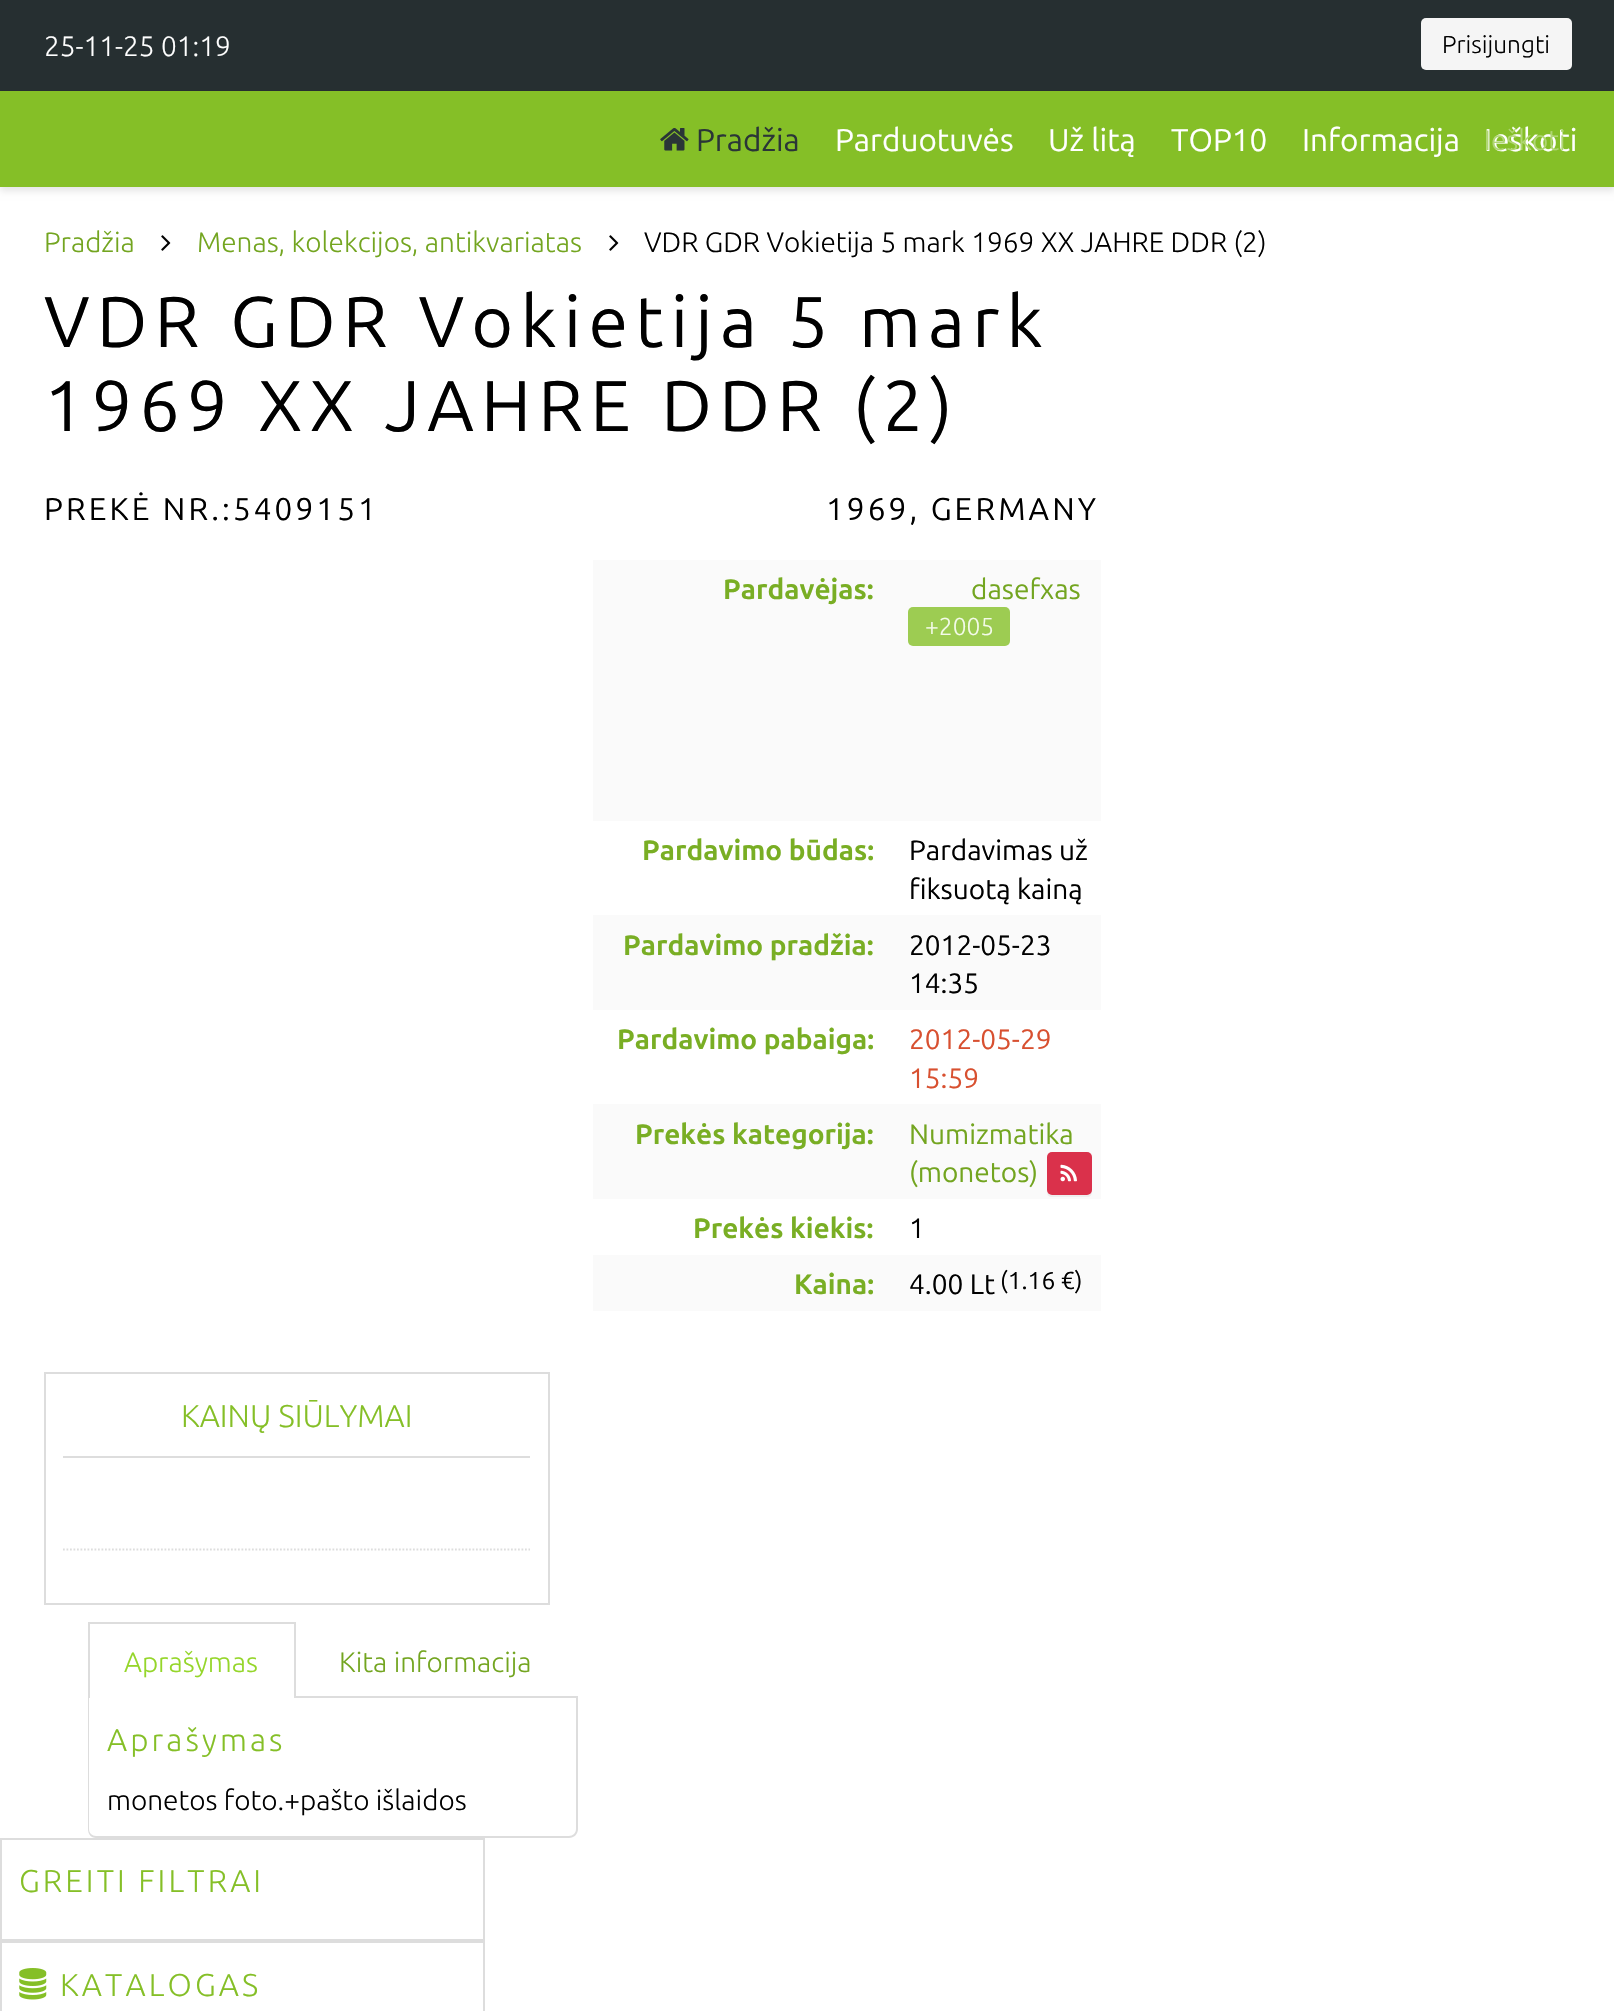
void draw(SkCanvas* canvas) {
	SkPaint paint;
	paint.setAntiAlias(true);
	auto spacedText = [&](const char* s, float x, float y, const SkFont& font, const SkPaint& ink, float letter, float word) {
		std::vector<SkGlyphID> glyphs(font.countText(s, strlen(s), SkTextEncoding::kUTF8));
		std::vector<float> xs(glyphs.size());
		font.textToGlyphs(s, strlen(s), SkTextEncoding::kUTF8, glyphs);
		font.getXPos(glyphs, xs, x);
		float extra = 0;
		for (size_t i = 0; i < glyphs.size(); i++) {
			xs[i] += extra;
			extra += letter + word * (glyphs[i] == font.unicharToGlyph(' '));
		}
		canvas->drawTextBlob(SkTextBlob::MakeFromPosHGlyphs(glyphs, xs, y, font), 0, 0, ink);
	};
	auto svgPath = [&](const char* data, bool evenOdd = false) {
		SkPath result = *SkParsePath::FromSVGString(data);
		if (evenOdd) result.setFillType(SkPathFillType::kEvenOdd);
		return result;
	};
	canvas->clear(0xffffffff);
	paint.setColor(0xff262f31);
	canvas->drawRect(SkRect::MakeXYWH(0, 0, 1614, 91), paint);
	SkFont f1(fontMgr->matchFamilyStyle("Ubuntu", SkFontStyle(300, SkFontStyle::kNormal_Width, SkFontStyle::kUpright_Slant)), 28);
	f1.setSubpixel(true);
	paint.setColor(0xffffffff);
	canvas->drawString("25-11-25 01:19", 44, 56, f1, paint);
	paint.setColor(0xfff5f5f5);
	canvas->drawRoundRect(SkRect::MakeXYWH(1421, 18, 151, 52), 5, 5, paint);
	SkFont f2(fontMgr->matchFamilyStyle("Ubuntu", SkFontStyle(300, SkFontStyle::kNormal_Width, SkFontStyle::kUpright_Slant)), 24.5);
	f2.setSubpixel(true);
	paint.setColor(0xff000000);
	canvas->drawString("Prisijungti", 1442, 53, f2, paint);
	paint.setColor(0x1a000000);
	paint.setMaskFilter(SkMaskFilter::MakeBlur(kNormal_SkBlurStyle, 3.5));
	canvas->drawRect(SkRect::MakeXYWH(0, 95, 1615, 96), paint);
	paint.setMaskFilter(nullptr);
	paint.setColor(0xff85bf27);
	canvas->drawRect(SkRect::MakeXYWH(0, 91, 1614, 96), paint);
	canvas->drawImageRect(SkImages::DeferredFromEncodedData(SkData::MakeFromFileName("img1.png")), SkRect::MakeXYWH(660, 128, 29, 23), SkSamplingOptions());
	SkFont f3(fontMgr->matchFamilyStyle("Ubuntu", SkFontStyle::Normal()), 31.5);
	f3.setSubpixel(true);
	paint.setColor(0xff2a3537);
	canvas->drawString("Pradžia", 696, 151, f3, paint);
	paint.setColor(0xffffffff);
	canvas->drawString("Parduotuvės", 835, 151, f3, paint);
	canvas->drawString("Už litą", 1048, 151, f3, paint);
	canvas->drawString("TOP10", 1171, 151, f3, paint);
	canvas->drawString("Informacija", 1302, 151, f3, paint);
	canvas->drawString("Ieškoti", 1484, 151, f3, paint);
	paint.setColor(0xffb0d673);
	canvas->drawString("Ieškoti", 1484, 150, f1, paint);
	paint.setColor(0xff73a520);
	canvas->drawString("Pradžia", 44, 252, f1, paint);
	canvas->drawImageRect(SkImages::DeferredFromEncodedData(SkData::MakeFromFileName("img2.png")), SkRect::MakeXYWH(161, 235, 10, 16), SkSamplingOptions());
	canvas->drawString("Menas, kolekcijos, antikvariatas", 197, 252, f1, paint);
	canvas->drawImageRect(SkImages::DeferredFromEncodedData(SkData::MakeFromFileName("img2.png")), SkRect::MakeXYWH(609, 235, 10, 16), SkSamplingOptions());
	paint.setColor(0xff000000);
	canvas->drawString("VDR GDR Vokietija 5 mark 1969 XX JAHRE DDR (2)", 644, 252, f1, paint);
	SkFont f4(fontMgr->matchFamilyStyle("Ubuntu", SkFontStyle::Normal()), 71.75);
	f4.setSubpixel(true);
	spacedText("VDR GDR Vokietija 5 mark", 44, 347, f4, paint, 7.2, 0);
	spacedText("1969 XX JAHRE DDR (2)", 44, 431, f4, paint, 7.2, 0);
	spacedText("PREKĖ NR.:5409151", 44, 520, f3, paint, 3.1, 0);
	spacedText("1969, GERMANY", 826, 520, f3, paint, 3.1, 0);
	paint.setColor(0xfffafafa);
	canvas->drawRect(SkRect::MakeXYWH(593, 560, 508, 261), paint);
	SkFont f5(fontMgr->matchFamilyStyle("Ubuntu", SkFontStyle::Bold()), 28);
	f5.setSubpixel(true);
	paint.setColor(0xff79ae24);
	canvas->drawString("Pardavėjas:", 723, 599, f5, paint);
	SkFont f6(fontMgr->matchFamilyStyle("Ubuntu", SkFontStyle::Normal()), 28);
	f6.setSubpixel(true);
	paint.setColor(0xff73a520);
	canvas->drawString("dasefxas", 971, 599, f6, paint);
	paint.setColor(0xff9dcc52);
	canvas->drawRoundRect(SkRect::MakeXYWH(908, 607, 102, 39), 5, 5, paint);
	paint.setColor(0xfff4fbea);
	canvas->drawString("+2005", 925, 635, f2, paint);
	paint.setColor(0xff79ae24);
	canvas->drawString("Pardavimo būdas:", 642, 860, f5, paint);
	paint.setColor(0xff000000);
	canvas->drawString("Pardavimas už", 909, 860, f6, paint);
	canvas->drawString("fiksuotą kainą", 909, 899, f6, paint);
	paint.setColor(0xfffafafa);
	canvas->drawRect(SkRect::MakeXYWH(593, 915, 508, 95), paint);
	paint.setColor(0xff79ae24);
	canvas->drawString("Pardavimo pradžia:", 623, 955, f5, paint);
	paint.setColor(0xff000000);
	canvas->drawString("2012-05-23", 909, 955, f6, paint);
	canvas->drawString("14:35", 909, 993, f6, paint);
	paint.setColor(0xff79ae24);
	canvas->drawString("Pardavimo pabaiga:", 617, 1049, f5, paint);
	paint.setColor(0xffd85030);
	canvas->drawString("2012-05-29", 909, 1049, f6, paint);
	canvas->drawString("15:59", 909, 1088, f6, paint);
	paint.setColor(0xfffafafa);
	canvas->drawRect(SkRect::MakeXYWH(593, 1104, 508, 95), paint);
	paint.setColor(0xff79ae24);
	canvas->drawString("Prekės kategorija:", 635, 1144, f5, paint);
	paint.setColor(0xff73a520);
	canvas->drawString("Numizmatika", 909, 1144, f6, paint);
	canvas->drawString("(monetos)", 909, 1182, f6, paint);
	paint.setColor(0xffeeeeee);
	canvas->drawPath(svgPath("M1047 1192C1047 1195 1049 1197 1052 1197H1087C1090 1197 1092 1195 1092 1192V1190C1092 1193 1090 1195 1087 1195H1052C1050 1195 1048 1194 1047 1192Z"), paint);
	paint.setColor(0xffda314b);
	canvas->drawRoundRect(SkRect::MakeXYWH(1047, 1152, 45, 43), 5, 5, paint);
	canvas->drawImageRect(SkImages::DeferredFromEncodedData(SkData::MakeFromFileName("img3.png")), SkRect::MakeXYWH(1060, 1164, 17, 18), SkSamplingOptions());
	paint.setColor(0xff79ae24);
	canvas->drawString("Prekės kiekis:", 693, 1238, f5, paint);
	paint.setColor(0xff000000);
	canvas->drawString("1", 909, 1238, f6, paint);
	paint.setColor(0xfffafafa);
	canvas->drawRect(SkRect::MakeXYWH(593, 1255, 508, 56), paint);
	paint.setColor(0xff79ae24);
	canvas->drawString("Kaina:", 794, 1294, f5, paint);
	paint.setColor(0xff000000);
	canvas->drawString("4.00 Lt", 909, 1294, f6, paint);
	SkFont f7(fontMgr->matchFamilyStyle("Ubuntu", SkFontStyle::Normal()), 24.5);
	f7.setSubpixel(true);
	canvas->drawString("(1.16 €)", 1000, 1289, f7, paint);
	paint.setStroke(true);
	paint.setStrokeWidth(2);
	paint.setColor(0xffdddddd);
	canvas->drawRect(SkRect::MakeXYWH(45, 1373, 504, 231), paint);
	SkFont f8(fontMgr->matchFamilyStyle("Ubuntu", SkFontStyle(300, SkFontStyle::kNormal_Width, SkFontStyle::kUpright_Slant)), 31.5);
	f8.setSubpixel(true);
	paint.setStroke(false);
	paint.setColor(0xff85bf27);
	canvas->drawString("KAINŲ SIŪLYMAI", 181, 1427, f8, paint);
	paint.setColor(0xffdddddd);
	canvas->drawRect(SkRect::MakeXYWH(63, 1456, 467, 2), paint);
	canvas->save();
	canvas->clipRect(SkRect::MakeXYWH(63, 1475, 467, 111));
	paint.setStroke(true);
	paint.setStrokeWidth(1.8);
	paint.setPathEffect(SkDashPathEffect::Make({{1.75f, 1.75f}}, 0));
	canvas->drawPath(svgPath("M63 1549.5H562"), paint);
	paint.setPathEffect(nullptr);
	canvas->restore();
	paint.setStroke(false);
	canvas->drawRect(SkRect::MakeXYWH(296, 1696, 282, 2), paint);
	canvas->drawRect(SkRect::MakeXYWH(88, 1622, 208, 2), paint);
	canvas->drawRect(SkRect::MakeXYWH(294, 1622, 2, 76), paint);
	canvas->drawRect(SkRect::MakeXYWH(88, 1622, 2, 76), paint);
	paint.setColor(0xff95d62a);
	canvas->drawString("Aprašymas", 124, 1672, f1, paint);
	paint.setColor(0xff73a520);
	canvas->drawString("Kita informacija", 339, 1672, f1, paint);
	paint.setColor(0xffdddddd);
	canvas->drawPath(svgPath("M88 1698H578V1829C578 1834 574 1838 569 1838H96C91 1838 88 1834 88 1829ZM89 1698H576V1829C576 1833 573 1836 569 1836H96C92 1836 89 1833 89 1829Z", true), paint);
	paint.setColor(0xff85bf27);
	spacedText("Aprašymas", 107, 1751, f8, paint, 3.1, 0);
	paint.setColor(0xff000000);
	canvas->drawString("monetos foto.+pašto išlaidos", 107, 1810, f1, paint);
	paint.setStroke(true);
	paint.setStrokeWidth(2);
	paint.setColor(0xffdddddd);
	canvas->drawRect(SkRect::MakeXYWH(1, 1839, 483, 101), paint);
	paint.setStroke(false);
	paint.setColor(0xff85bf27);
	spacedText("GREITI FILTRAI", 19, 1892, f8, paint, 3.1, 0);
	paint.setStroke(true);
	paint.setColor(0xffdddddd);
	canvas->drawRect(SkRect::MakeXYWH(1, 1942, 483, 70), paint);
	canvas->drawImageRect(SkImages::DeferredFromEncodedData(SkData::MakeFromFileName("img4.png")), SkRect::MakeXYWH(19, 1968, 28, 32), SkSamplingOptions());
	paint.setStroke(false);
	paint.setColor(0xff85bf27);
	spacedText("KATALOGAS", 60, 1996, f8, paint, 3.1, 0);
}
